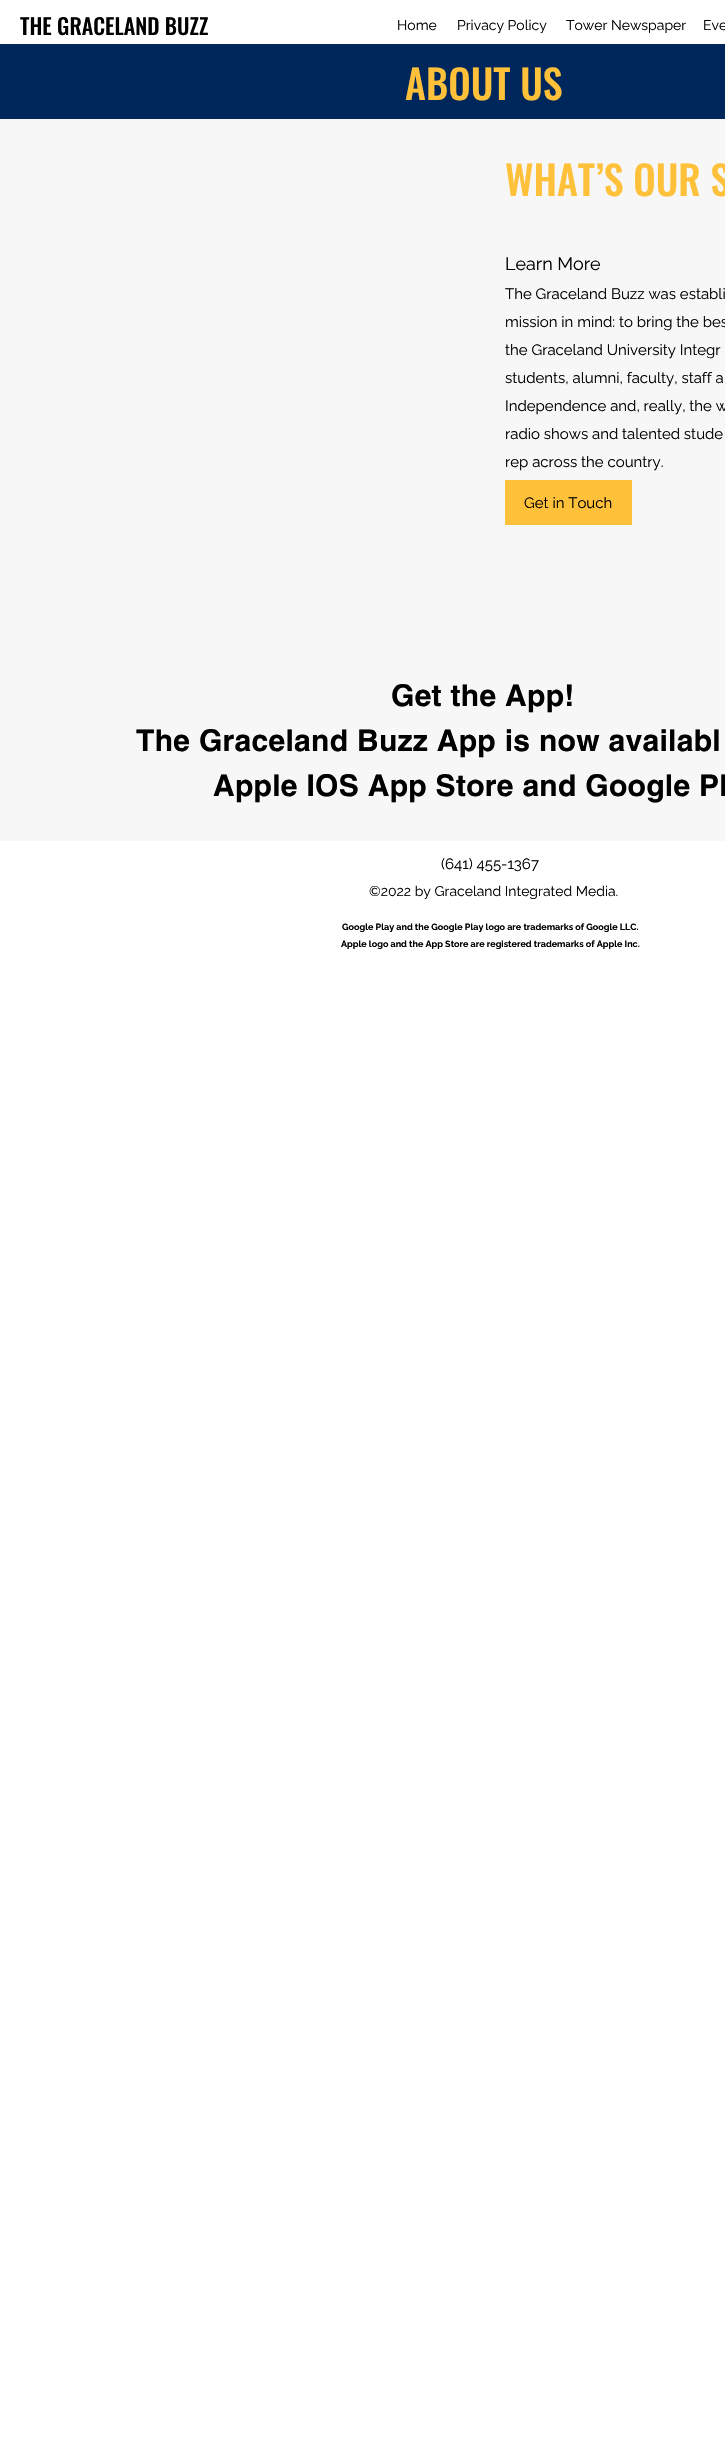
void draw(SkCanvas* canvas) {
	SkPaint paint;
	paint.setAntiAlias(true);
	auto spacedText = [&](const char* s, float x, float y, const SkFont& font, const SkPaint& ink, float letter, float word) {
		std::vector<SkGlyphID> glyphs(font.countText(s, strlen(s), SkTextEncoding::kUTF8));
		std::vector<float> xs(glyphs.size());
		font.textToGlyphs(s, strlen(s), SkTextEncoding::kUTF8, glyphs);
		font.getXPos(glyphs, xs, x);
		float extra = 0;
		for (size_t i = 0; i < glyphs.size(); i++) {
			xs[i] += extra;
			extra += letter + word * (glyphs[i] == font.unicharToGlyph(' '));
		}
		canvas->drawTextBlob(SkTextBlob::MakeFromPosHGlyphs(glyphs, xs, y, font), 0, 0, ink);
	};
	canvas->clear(0xffffffff);
	SkFont f1(fontMgr->matchFamilyStyle("Oswald", SkFontStyle(500, SkFontStyle::kNormal_Width, SkFontStyle::kUpright_Slant)), 22);
	f1.setSubpixel(true);
	paint.setColor(0xff000000);
	canvas->drawString("THE GRACELAND BUZZ", 20, 35, f1, paint);
	SkFont f2(fontMgr->matchFamilyStyle("Raleway", SkFontStyle::Normal()), 14);
	f2.setSubpixel(true);
	canvas->drawString("Home", 397, 30, f2, paint);
	canvas->drawString("Privacy Policy", 457, 30, f2, paint);
	canvas->drawString("Tower Newspaper", 566, 30, f2, paint);
	canvas->drawString("Eve", 703, 30, f2, paint);
	paint.setColor(0xff00275c);
	canvas->drawRect(SkRect::MakeXYWH(0, 44, 725, 75), paint);
	SkFont f3(fontMgr->matchFamilyStyle("Oswald", SkFontStyle(500, SkFontStyle::kNormal_Width, SkFontStyle::kUpright_Slant)), 40);
	f3.setSubpixel(true);
	paint.setColor(0xffffc03a);
	canvas->drawString("ABOUT US", 405, 100, f3, paint);
	paint.setColor(0xfff7f7f7);
	canvas->drawRect(SkRect::MakeXYWH(0, 119, 725, 722), paint);
	paint.setColor(0xffffc03a);
	canvas->drawString("WHAT’S OUR S", 505, 196, f3, paint);
	SkFont f4(fontMgr->matchFamilyStyle("Raleway", SkFontStyle::Normal()), 18);
	f4.setSubpixel(true);
	paint.setColor(0xff000000);
	canvas->drawString("Learn More", 505, 270, f4, paint);
	SkFont f5(fontMgr->matchFamilyStyle("Raleway", SkFontStyle::Normal()), 15);
	f5.setSubpixel(true);
	canvas->drawString("The Graceland Buzz was establi", 505, 299, f5, paint);
	canvas->drawString("mission in mind: to bring the bes", 505, 327, f5, paint);
	canvas->drawString("the Graceland University Integr", 505, 355, f5, paint);
	canvas->drawString("students, alumni, faculty, staff a", 505, 383, f5, paint);
	canvas->drawString("Independence and, really, the w", 505, 411, f5, paint);
	canvas->drawString("radio shows and talented stude", 505, 439, f5, paint);
	canvas->drawString("rep across the country.", 505, 467, f5, paint);
	paint.setColor(0xffffc03a);
	canvas->drawRect(SkRect::MakeXYWH(505, 480, 127, 45), paint);
	paint.setColor(0xff000000);
	canvas->drawString("Get in Touch", 524, 508, f5, paint);
	SkFont f6(fontMgr->matchFamilyStyle("helvetica", SkFontStyle::Bold()), 30);
	f6.setSubpixel(true);
	spacedText("Get the App!", 391, 706, f6, paint, 0.3, 0);
	spacedText("The Graceland Buzz App is now availabl", 136, 751, f6, paint, 0.3, 0);
	spacedText("Apple IOS App Store and Google Pl", 213, 796, f6, paint, 0.3, 0);
	canvas->drawString("(641) 455-1367", 441, 869, f5, paint);
	canvas->drawString("©2022 by Graceland Integrated Media.", 369, 896, f2, paint);
	SkFont f7(fontMgr->matchFamilyStyle("Raleway", SkFontStyle::Bold()), 9);
	f7.setSubpixel(true);
	canvas->drawString("Google Play and the Google Play logo are trademarks of Google LLC.", 342, 930, f7, paint);
	canvas->drawString("Apple logo and the App Store are registered trademarks of Apple Inc.", 341, 947, f7, paint);
}
